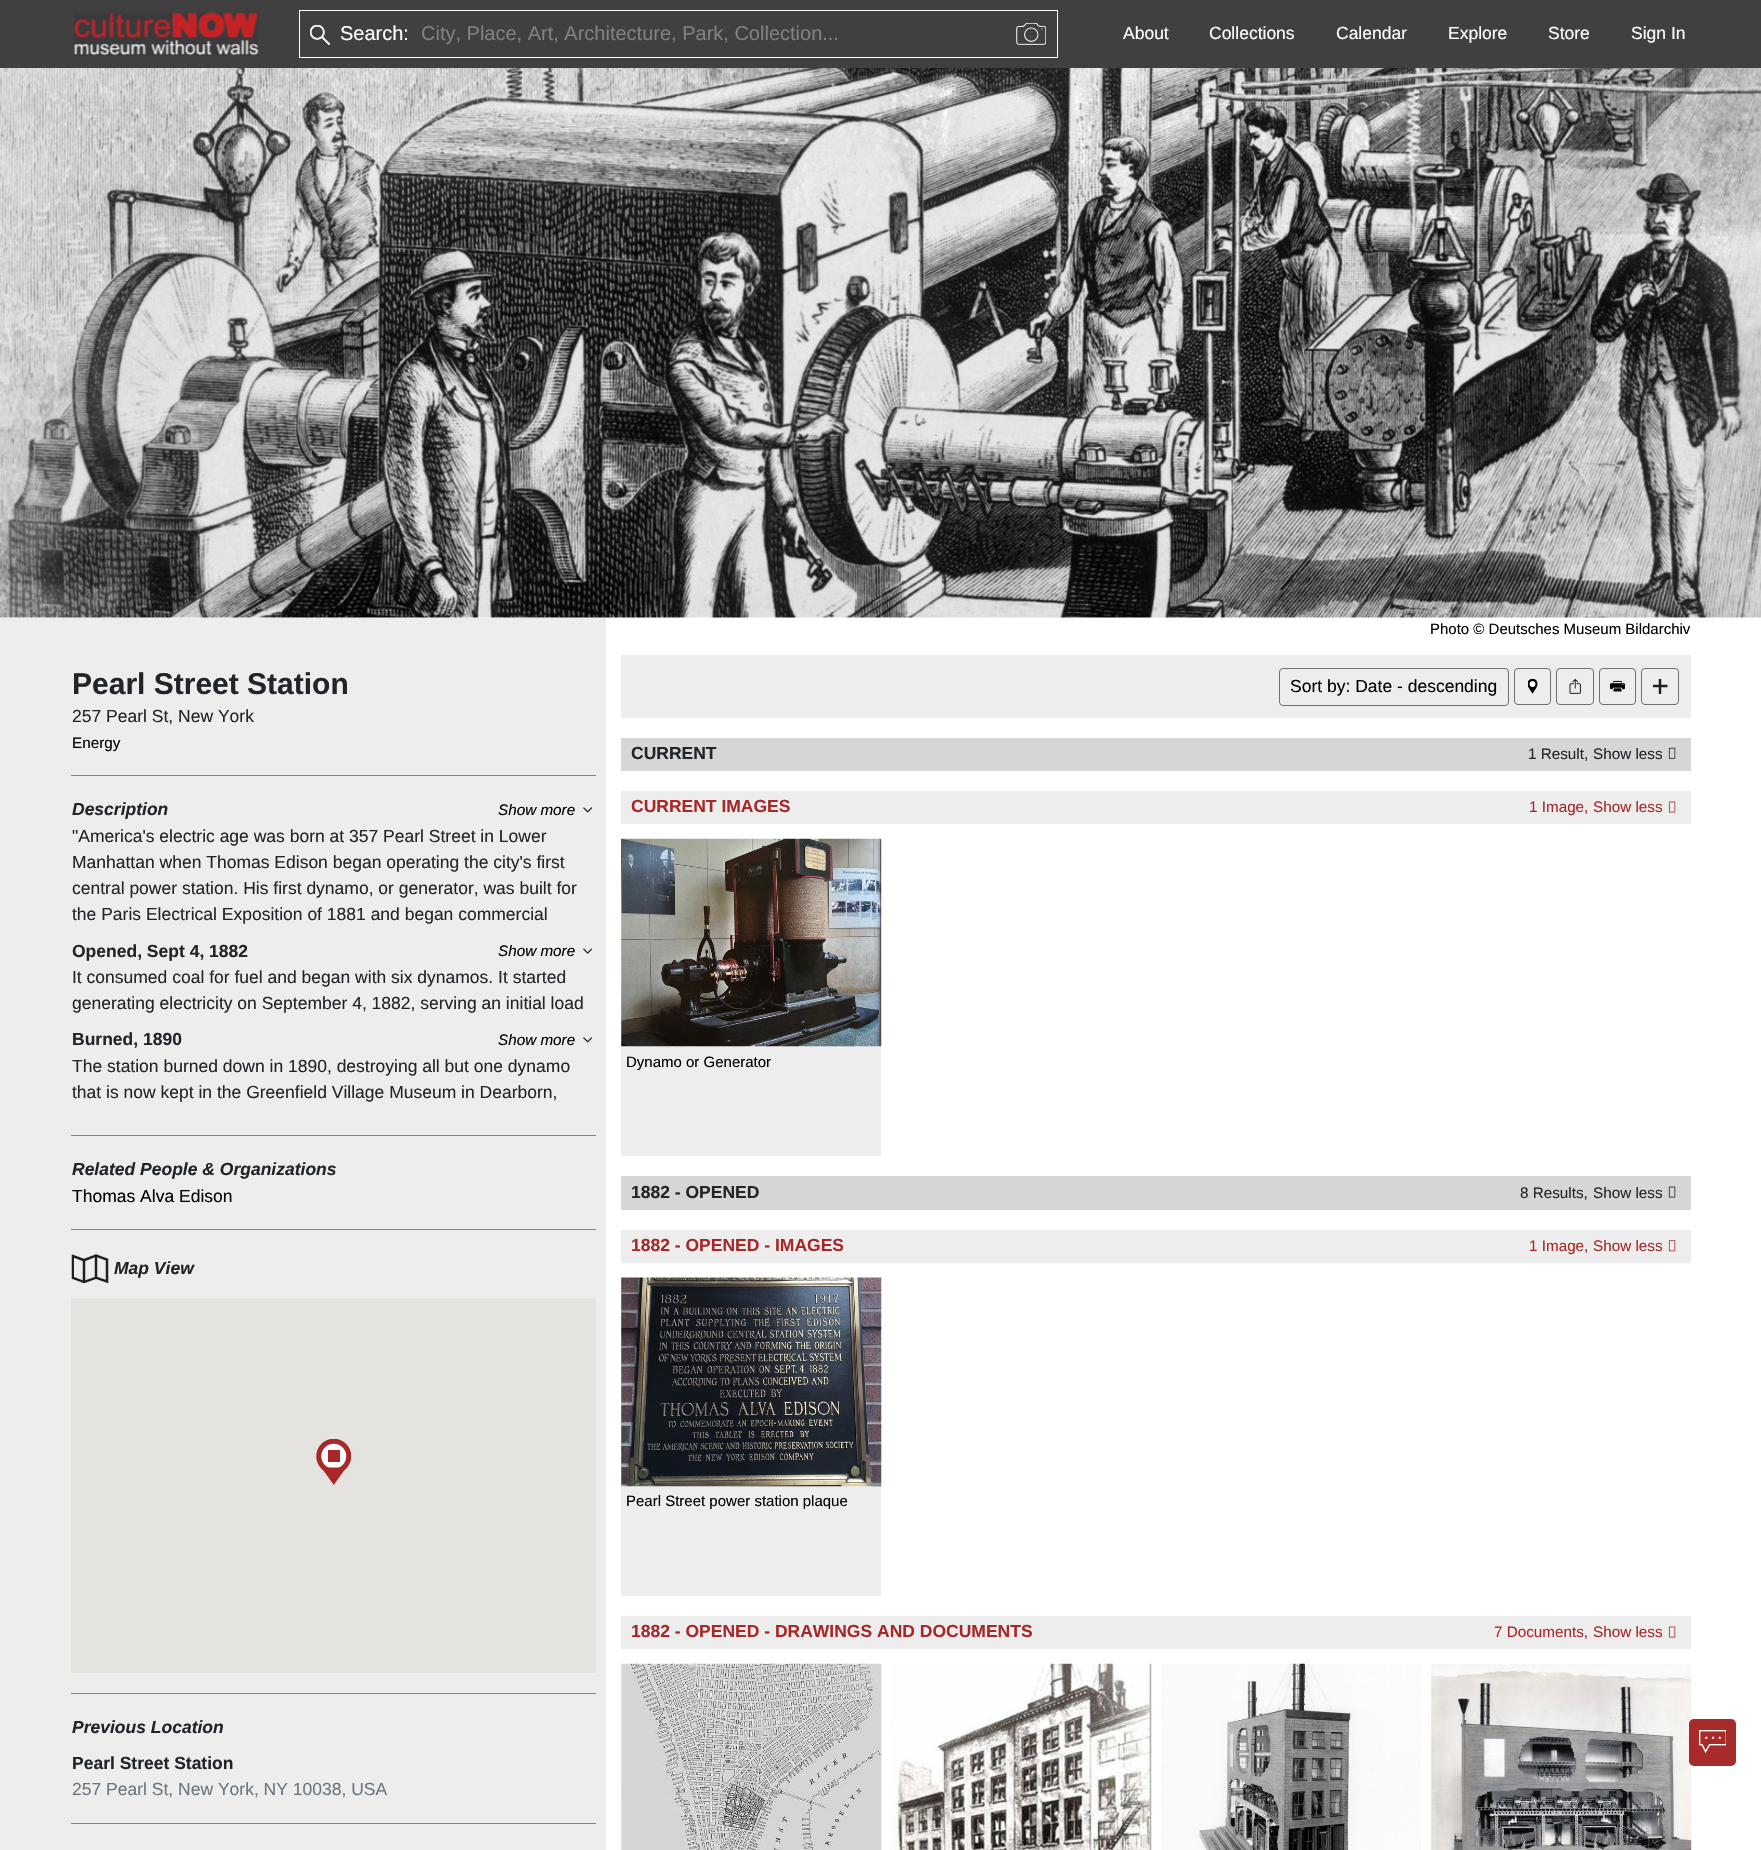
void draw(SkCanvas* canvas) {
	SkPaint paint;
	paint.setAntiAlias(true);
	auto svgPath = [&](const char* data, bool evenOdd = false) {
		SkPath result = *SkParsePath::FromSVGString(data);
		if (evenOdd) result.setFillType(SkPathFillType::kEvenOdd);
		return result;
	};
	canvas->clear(0xffffffff);
	paint.setColor(0xff404040);
	canvas->drawRect(SkRect::MakeXYWH(0, 0, 1761, 68), paint);
	canvas->drawImageRect(SkImages::DeferredFromEncodedData(SkData::MakeFromFileName("img1.png")), SkRect::MakeXYWH(74, 12, 185, 44), SkSamplingOptions());
	paint.setStroke(true);
	paint.setStrokeWidth(1);
	paint.setColor(0xffffffff);
	canvas->drawRect(SkRect::MakeXYWH(299.5, 10.5, 758, 47), paint);
	canvas->drawImageRect(SkImages::DeferredFromEncodedData(SkData::MakeFromFileName("img2.png")), SkRect::MakeXYWH(310, 25, 20, 20), SkSamplingOptions());
	SkFont f1(fontMgr->matchFamilyStyle("Liberation Sans", SkFontStyle::Normal()), 20);
	f1.setSubpixel(true);
	paint.setStroke(false);
	canvas->drawString("Search:", 340, 40, f1, paint);
	paint.setColor(0xff808080);
	canvas->drawString("City, Place, Art, Architecture, Park, Collection...", 421, 40, f1, paint);
	canvas->drawImageRect(SkImages::DeferredFromEncodedData(SkData::MakeFromFileName("img3.png")), SkRect::MakeXYWH(1016, 23, 30, 22), SkSamplingOptions());
	SkFont f2(fontMgr->matchFamilyStyle("Liberation Sans", SkFontStyle::Normal()), 17.5);
	f2.setSubpixel(true);
	paint.setColor(0xffffffff);
	canvas->drawString("About", 1123, 39, f2, paint);
	canvas->drawString("Collections", 1209, 39, f2, paint);
	canvas->drawString("Calendar", 1336, 39, f2, paint);
	canvas->drawString("Explore", 1448, 39, f2, paint);
	canvas->drawString("Store", 1548, 39, f2, paint);
	canvas->drawString("Sign In", 1631, 39, f2, paint);
	canvas->drawImageRect(SkImages::DeferredFromEncodedData(SkData::MakeFromFileName("img4.png")), SkRect::MakeXYWH(0, 68, 1761, 550), SkSamplingOptions());
	paint.setColor(0xffededed);
	canvas->drawRect(SkRect::MakeXYWH(0, 618, 56, 1232), paint);
	canvas->drawRect(SkRect::MakeXYWH(56, 618, 550, 1232), paint);
	SkFont f3(fontMgr->matchFamilyStyle("Liberation Sans", SkFontStyle::Normal()), 15);
	f3.setSubpixel(true);
	paint.setColor(0xff000000);
	canvas->drawString("Photo © Deutsches Museum Bildarchiv", 1430, 634, f3, paint);
	SkFont f4(fontMgr->matchFamilyStyle("Liberation Sans", SkFontStyle::Bold()), 30);
	f4.setSubpixel(true);
	paint.setColor(0xff212529);
	canvas->drawString("Pearl Street Station", 72, 694, f4, paint);
	canvas->drawString("257 Pearl St, New York", 72, 722, f2, paint);
	SkFont f5(fontMgr->matchFamilyStyle("Liberation Sans", SkFontStyle::Normal()), 15.25);
	f5.setSubpixel(true);
	paint.setColor(0xff000000);
	canvas->drawString("Energy", 72, 748, f5, paint);
	paint.setColor(0xff828282);
	canvas->drawRect(SkRect::MakeXYWH(71, 775, 525, 1), paint);
	SkFont f6(fontMgr->matchFamilyStyle("Liberation Sans", SkFontStyle::BoldItalic()), 17.5);
	f6.setSubpixel(true);
	paint.setColor(0xff212529);
	canvas->drawString("Description", 72, 815, f6, paint);
	SkFont f7(fontMgr->matchFamilyStyle("Liberation Sans", SkFontStyle::Italic()), 15.25);
	f7.setSubpixel(true);
	paint.setColor(0xff000000);
	canvas->drawString("Show more", 498, 815, f7, paint);
	canvas->drawImageRect(SkImages::DeferredFromEncodedData(SkData::MakeFromFileName("img5.png")), SkRect::MakeXYWH(583, 807, 10, 6), SkSamplingOptions());
	paint.setColor(0xff212529);
	canvas->drawString("\"America's electric age was born at 357 Pearl Street in Lower", 72, 842, f2, paint);
	canvas->drawString("Manhattan when Thomas Edison began operating the city's first", 72, 868, f2, paint);
	canvas->drawString("central power station. His first dynamo, or generator, was built for", 72, 894, f2, paint);
	canvas->drawString("the Paris Electrical Exposition of 1881 and began commercial", 72, 920, f2, paint);
	SkFont f8(fontMgr->matchFamilyStyle("Liberation Sans", SkFontStyle::Bold()), 17.5);
	f8.setSubpixel(true);
	canvas->drawString("Opened, Sept 4, 1882", 72, 957, f8, paint);
	paint.setColor(0xff000000);
	canvas->drawString("Show more", 498, 956, f7, paint);
	canvas->drawImageRect(SkImages::DeferredFromEncodedData(SkData::MakeFromFileName("img6.png")), SkRect::MakeXYWH(583, 948, 10, 6), SkSamplingOptions());
	paint.setColor(0xff212529);
	canvas->drawString("It consumed coal for fuel and began with six dynamos. It started", 72, 983, f2, paint);
	canvas->drawString("generating electricity on September 4, 1882, serving an initial load", 72, 1009, f2, paint);
	canvas->drawString("Burned, 1890", 72, 1045, f8, paint);
	paint.setColor(0xff000000);
	canvas->drawString("Show more", 498, 1045, f7, paint);
	canvas->drawImageRect(SkImages::DeferredFromEncodedData(SkData::MakeFromFileName("img5.png")), SkRect::MakeXYWH(583, 1037, 10, 6), SkSamplingOptions());
	paint.setColor(0xff212529);
	canvas->drawString("The station burned down in 1890, destroying all but one dynamo", 72, 1072, f2, paint);
	canvas->drawString("that is now kept in the Greenfield Village Museum in Dearborn,", 72, 1098, f2, paint);
	paint.setColor(0xff828282);
	canvas->drawRect(SkRect::MakeXYWH(71, 1135, 525, 1), paint);
	paint.setColor(0xff212529);
	canvas->drawString("Related People & Organizations", 72, 1175, f6, paint);
	paint.setColor(0xff000000);
	canvas->drawString("Thomas Alva Edison", 72, 1202, f2, paint);
	paint.setColor(0xff828282);
	canvas->drawRect(SkRect::MakeXYWH(71, 1229, 525, 1), paint);
	canvas->drawImageRect(SkImages::DeferredFromEncodedData(SkData::MakeFromFileName("img7.png")), SkRect::MakeXYWH(71, 1254, 38, 30), SkSamplingOptions());
	paint.setColor(0xff212529);
	canvas->drawString("Map View", 114, 1274, f6, paint);
	paint.setColor(0xffe5e3df);
	canvas->drawRect(SkRect::MakeXYWH(71, 1298, 525, 375), paint);
	canvas->drawImageRect(SkImages::DeferredFromEncodedData(SkData::MakeFromFileName("img8.png")), SkRect::MakeXYWH(316, 1439, 35, 46), SkSamplingOptions());
	paint.setColor(0xff828282);
	canvas->drawRect(SkRect::MakeXYWH(71, 1693, 525, 1), paint);
	paint.setColor(0xff212529);
	canvas->drawString("Previous Location", 72, 1733, f6, paint);
	canvas->drawString("Pearl Street Station", 72, 1769, f8, paint);
	paint.setColor(0xff6c757d);
	canvas->drawString("257 Pearl St, New York, NY 10038, USA", 72, 1795, f2, paint);
	paint.setColor(0xff828282);
	canvas->drawRect(SkRect::MakeXYWH(71, 1823, 525, 1), paint);
	paint.setColor(0xffededed);
	canvas->drawRect(SkRect::MakeXYWH(621, 655, 1070, 63), paint);
	paint.setStroke(true);
	paint.setColor(0xff707070);
	canvas->drawRoundRect(SkRect::MakeXYWH(1279.5, 668.5, 229, 37), 3.5, 3.5, paint);
	paint.setStroke(false);
	paint.setColor(0xff000000);
	canvas->drawString("Sort by: Date - descending", 1290, 692, f2, paint);
	paint.setStroke(true);
	paint.setColor(0xff707070);
	canvas->drawRoundRect(SkRect::MakeXYWH(1514.5, 668.5, 36, 36), 3.5, 3.5, paint);
	canvas->drawImageRect(SkImages::DeferredFromEncodedData(SkData::MakeFromFileName("img9.png")), SkRect::MakeXYWH(1528, 679, 10, 15), SkSamplingOptions());
	canvas->drawRoundRect(SkRect::MakeXYWH(1556.5, 668.5, 37, 36), 3.5, 3.5, paint);
	canvas->drawImageRect(SkImages::DeferredFromEncodedData(SkData::MakeFromFileName("img10.png")), SkRect::MakeXYWH(1569, 679, 12, 15), SkSamplingOptions());
	canvas->drawRoundRect(SkRect::MakeXYWH(1599.5, 668.5, 36, 36), 3.5, 3.5, paint);
	canvas->drawImageRect(SkImages::DeferredFromEncodedData(SkData::MakeFromFileName("img11.png")), SkRect::MakeXYWH(1610, 680, 15, 12), SkSamplingOptions());
	canvas->drawRoundRect(SkRect::MakeXYWH(1641.5, 668.5, 37, 36), 3.5, 3.5, paint);
	paint.setStrokeWidth(2.5);
	paint.setColor(0xff231f20);
	canvas->drawPath(svgPath("M1660 679V694"), paint);
	canvas->save();
	canvas->clipRect(SkRect::MakeXYWH(1653, 679, 15, 15));
	canvas->drawPath(svgPath("M1667.5 686H1652.5"), paint);
	canvas->restore();
	paint.setStroke(false);
	paint.setColor(0xffd6d6d6);
	canvas->drawRect(SkRect::MakeXYWH(621, 738, 1070, 33), paint);
	paint.setColor(0xff212529);
	canvas->drawString("CURRENT", 631, 759, f8, paint);
	canvas->drawString("1 Result,", 1528, 759, f5, paint);
	canvas->drawString("Show less", 1593, 759, f5, paint);
	canvas->drawImageRect(SkImages::DeferredFromEncodedData(SkData::MakeFromFileName("img12.png")), SkRect::MakeXYWH(1668, 747, 8, 12), SkSamplingOptions());
	paint.setColor(0xffededed);
	canvas->drawRect(SkRect::MakeXYWH(621, 791, 1070, 33), paint);
	paint.setColor(0xffa82829);
	canvas->drawString("CURRENT IMAGES", 631, 812, f8, paint);
	canvas->drawString("1 Image,", 1529, 812, f5, paint);
	canvas->drawString("Show less", 1593, 812, f5, paint);
	canvas->drawImageRect(SkImages::DeferredFromEncodedData(SkData::MakeFromFileName("img13.png")), SkRect::MakeXYWH(1668, 801, 8, 12), SkSamplingOptions());
	paint.setColor(0xffededed);
	canvas->drawRect(SkRect::MakeXYWH(621, 839, 260, 317), paint);
	canvas->drawImageRect(SkImages::DeferredFromEncodedData(SkData::MakeFromFileName("img14.png")), SkRect::MakeXYWH(621, 838, 261, 209), SkSamplingOptions());
	paint.setColor(0xff000000);
	canvas->drawString("Dynamo or Generator", 626, 1067, f3, paint);
	paint.setColor(0xffd6d6d6);
	canvas->drawRect(SkRect::MakeXYWH(621, 1176, 1070, 34), paint);
	paint.setColor(0xff212529);
	canvas->drawString("1882 - OPENED", 631, 1198, f8, paint);
	canvas->drawString("8 Results,", 1520, 1198, f5, paint);
	canvas->drawString("Show less", 1593, 1198, f5, paint);
	canvas->drawImageRect(SkImages::DeferredFromEncodedData(SkData::MakeFromFileName("img15.png")), SkRect::MakeXYWH(1668, 1186, 8, 12), SkSamplingOptions());
	paint.setColor(0xffededed);
	canvas->drawRect(SkRect::MakeXYWH(621, 1230, 1070, 33), paint);
	paint.setColor(0xffa82829);
	canvas->drawString("1882 - OPENED - IMAGES", 631, 1251, f8, paint);
	canvas->drawString("1 Image,", 1529, 1251, f5, paint);
	canvas->drawString("Show less", 1593, 1251, f5, paint);
	canvas->drawImageRect(SkImages::DeferredFromEncodedData(SkData::MakeFromFileName("img16.png")), SkRect::MakeXYWH(1668, 1240, 8, 12), SkSamplingOptions());
	paint.setColor(0xffededed);
	canvas->drawRect(SkRect::MakeXYWH(621, 1278, 260, 318), paint);
	canvas->drawImageRect(SkImages::DeferredFromEncodedData(SkData::MakeFromFileName("img17.png")), SkRect::MakeXYWH(621, 1277, 261, 210), SkSamplingOptions());
	paint.setColor(0xff000000);
	canvas->drawString("Pearl Street power station plaque", 626, 1506, f3, paint);
	paint.setColor(0xffededed);
	canvas->drawRect(SkRect::MakeXYWH(621, 1616, 1070, 33), paint);
	paint.setColor(0xffa82829);
	canvas->drawString("1882 - OPENED - DRAWINGS AND DOCUMENTS", 631, 1637, f8, paint);
	canvas->drawString("7 Documents,", 1494, 1637, f5, paint);
	canvas->drawString("Show less", 1593, 1637, f5, paint);
	canvas->drawImageRect(SkImages::DeferredFromEncodedData(SkData::MakeFromFileName("img13.png")), SkRect::MakeXYWH(1668, 1626, 8, 12), SkSamplingOptions());
	canvas->drawImageRect(SkImages::DeferredFromEncodedData(SkData::MakeFromFileName("img18.png")), SkRect::MakeXYWH(621, 1663, 261, 187), SkSamplingOptions());
	canvas->drawImageRect(SkImages::DeferredFromEncodedData(SkData::MakeFromFileName("img19.png")), SkRect::MakeXYWH(891, 1663, 261, 187), SkSamplingOptions());
	canvas->drawImageRect(SkImages::DeferredFromEncodedData(SkData::MakeFromFileName("img20.png")), SkRect::MakeXYWH(1161, 1663, 260, 187), SkSamplingOptions());
	canvas->drawImageRect(SkImages::DeferredFromEncodedData(SkData::MakeFromFileName("img21.png")), SkRect::MakeXYWH(1431, 1664, 261, 186), SkSamplingOptions());
	paint.setColor(0xffa82a29);
	canvas->drawRoundRect(SkRect::MakeXYWH(1689, 1719, 47, 47), 5, 5, paint);
	canvas->drawImageRect(SkImages::DeferredFromEncodedData(SkData::MakeFromFileName("img22.png")), SkRect::MakeXYWH(1699, 1730, 27, 23), SkSamplingOptions());
}
